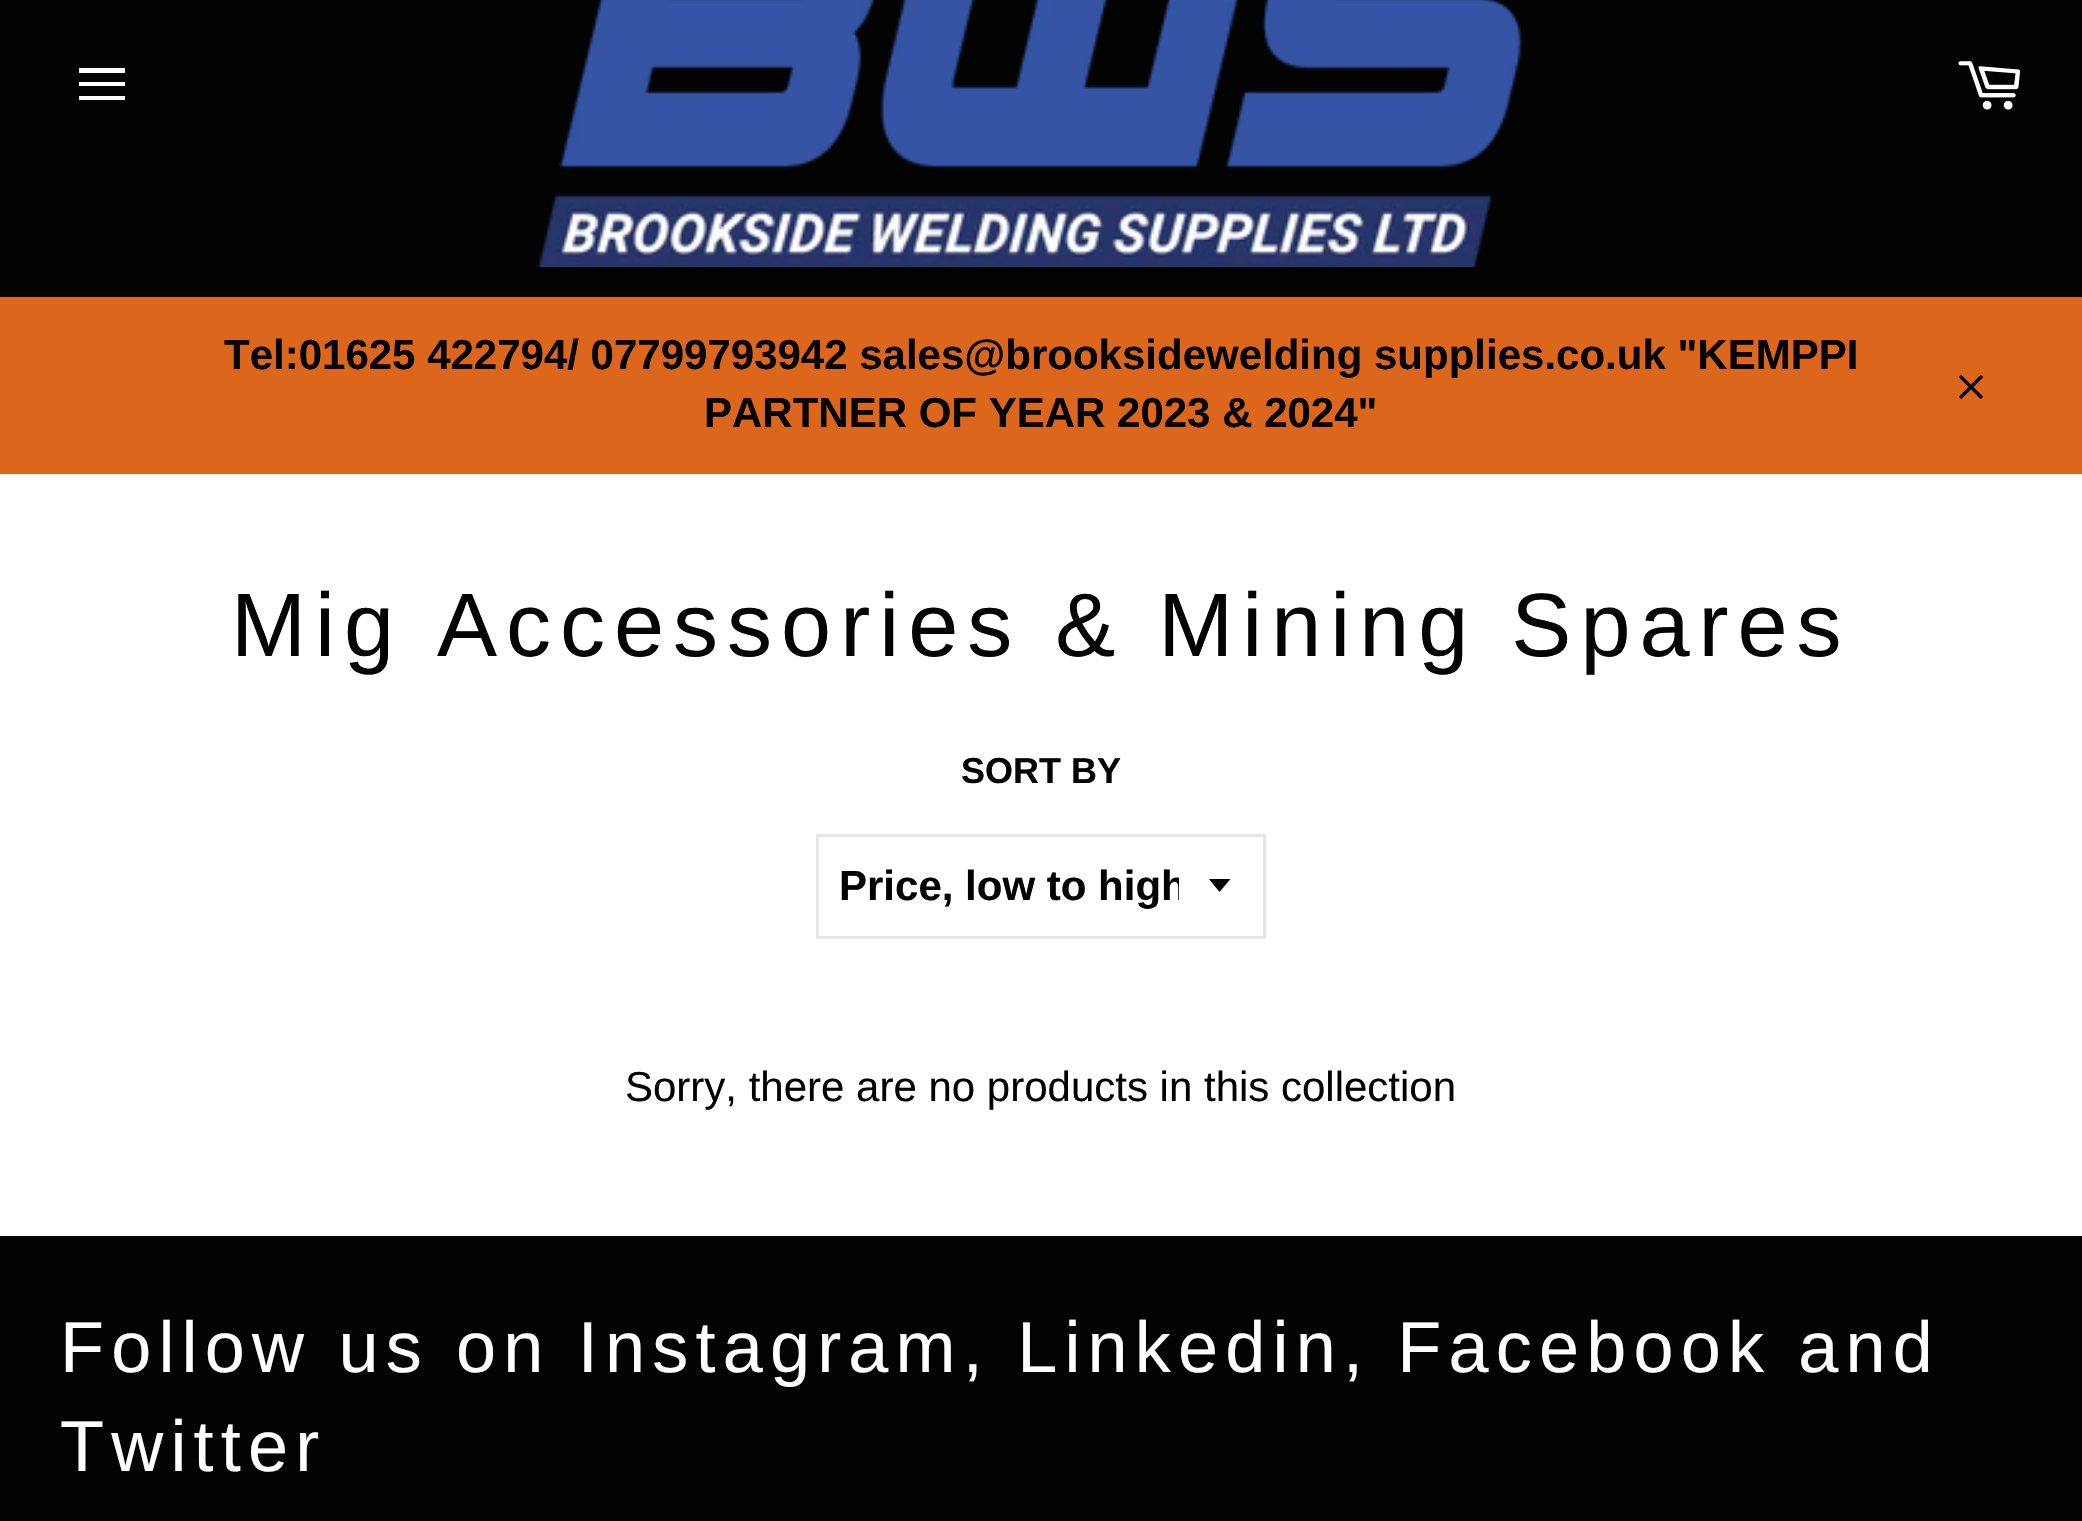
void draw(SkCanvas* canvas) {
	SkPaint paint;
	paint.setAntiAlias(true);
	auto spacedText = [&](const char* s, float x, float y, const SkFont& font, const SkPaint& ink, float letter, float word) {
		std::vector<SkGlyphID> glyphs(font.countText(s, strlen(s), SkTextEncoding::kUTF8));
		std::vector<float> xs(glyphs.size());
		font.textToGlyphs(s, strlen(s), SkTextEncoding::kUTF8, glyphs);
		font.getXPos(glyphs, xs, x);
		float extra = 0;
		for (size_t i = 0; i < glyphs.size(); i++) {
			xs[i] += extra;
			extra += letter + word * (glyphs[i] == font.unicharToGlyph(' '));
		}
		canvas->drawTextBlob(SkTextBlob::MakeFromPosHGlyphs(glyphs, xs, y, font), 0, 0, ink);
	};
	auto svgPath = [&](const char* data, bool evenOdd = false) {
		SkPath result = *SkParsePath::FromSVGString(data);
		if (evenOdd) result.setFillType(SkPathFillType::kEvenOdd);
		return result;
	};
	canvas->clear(0xffffffff);
	paint.setColor(0xff030303);
	canvas->drawRect(SkRect::MakeXYWH(0, 0, 2082, 297), paint);
	paint.setColor(0xffffffff);
	canvas->drawPath(svgPath("M79 82H125V86H79ZM79 68H125V73H79ZM79 96H125V100H79Z"), paint);
	canvas->drawImageRect(SkImages::DeferredFromEncodedData(SkData::MakeFromFileName("img1.png")), SkRect::MakeXYWH(537, 0, 986, 267), SkSamplingOptions());
	canvas->drawImageRect(SkImages::DeferredFromEncodedData(SkData::MakeFromFileName("img2.png")), SkRect::MakeXYWH(1958, 61, 63, 49), SkSamplingOptions());
	paint.setColor(0xffdd661d);
	canvas->drawRect(SkRect::MakeXYWH(0, 297, 2082, 177), paint);
	SkFont f1(fontMgr->matchFamilyStyle("Liberation Sans", SkFontStyle::Bold()), 42);
	f1.setSubpixel(true);
	paint.setColor(0xff030303);
	canvas->drawString("Tel:01625 422794/ 07799793942 sales@brooksidewelding supplies.co.uk \"KEMPPI", 224, 369, f1, paint);
	canvas->drawString("PARTNER OF YEAR 2023 & 2024\"", 704, 427, f1, paint);
	canvas->drawImageRect(SkImages::DeferredFromEncodedData(SkData::MakeFromFileName("img3.png")), SkRect::MakeXYWH(1958, 374, 26, 26), SkSamplingOptions());
	SkFont f2(fontMgr->matchFamilyStyle("Liberation Sans", SkFontStyle::Normal()), 90);
	f2.setSubpixel(true);
	spacedText("Mig Accessories & Mining Spares", 231, 656, f2, paint, 9, 0);
	SkFont f3(fontMgr->matchFamilyStyle("Liberation Sans", SkFontStyle::Bold()), 36);
	f3.setSubpixel(true);
	canvas->drawString("SORT BY", 961, 783, f3, paint);
	canvas->drawPath(svgPath("M1209 879L1219.5 892C1220 892 1229 880.5 1230.5 879Z"), paint);
	paint.setStroke(true);
	paint.setStrokeWidth(3);
	paint.setColor(0xffe6e6e6);
	canvas->drawRect(SkRect::MakeXYWH(817.5, 835.5, 447, 102), paint);
	canvas->save();
	canvas->clipRect(SkRect::MakeXYWH(840, 858, 339, 57));
	paint.setStroke(false);
	paint.setColor(0xff030303);
	canvas->drawString("Price, low to high", 839, 900, f1, paint);
	canvas->restore();
	SkFont f4(fontMgr->matchFamilyStyle("Liberation Sans", SkFontStyle::Normal()), 42);
	f4.setSubpixel(true);
	canvas->drawString("Sorry, there are no products in this collection", 625, 1101, f4, paint);
	canvas->drawRect(SkRect::MakeXYWH(0, 1236, 2082, 285), paint);
	SkFont f5(fontMgr->matchFamilyStyle("Liberation Sans", SkFontStyle::Normal()), 72);
	f5.setSubpixel(true);
	paint.setColor(0xffffffff);
	spacedText("Follow us on Instagram, Linkedin, Facebook and", 60, 1372, f5, paint, 7.2, 0);
	spacedText("Twitter", 60, 1471, f5, paint, 7.2, 0);
}
